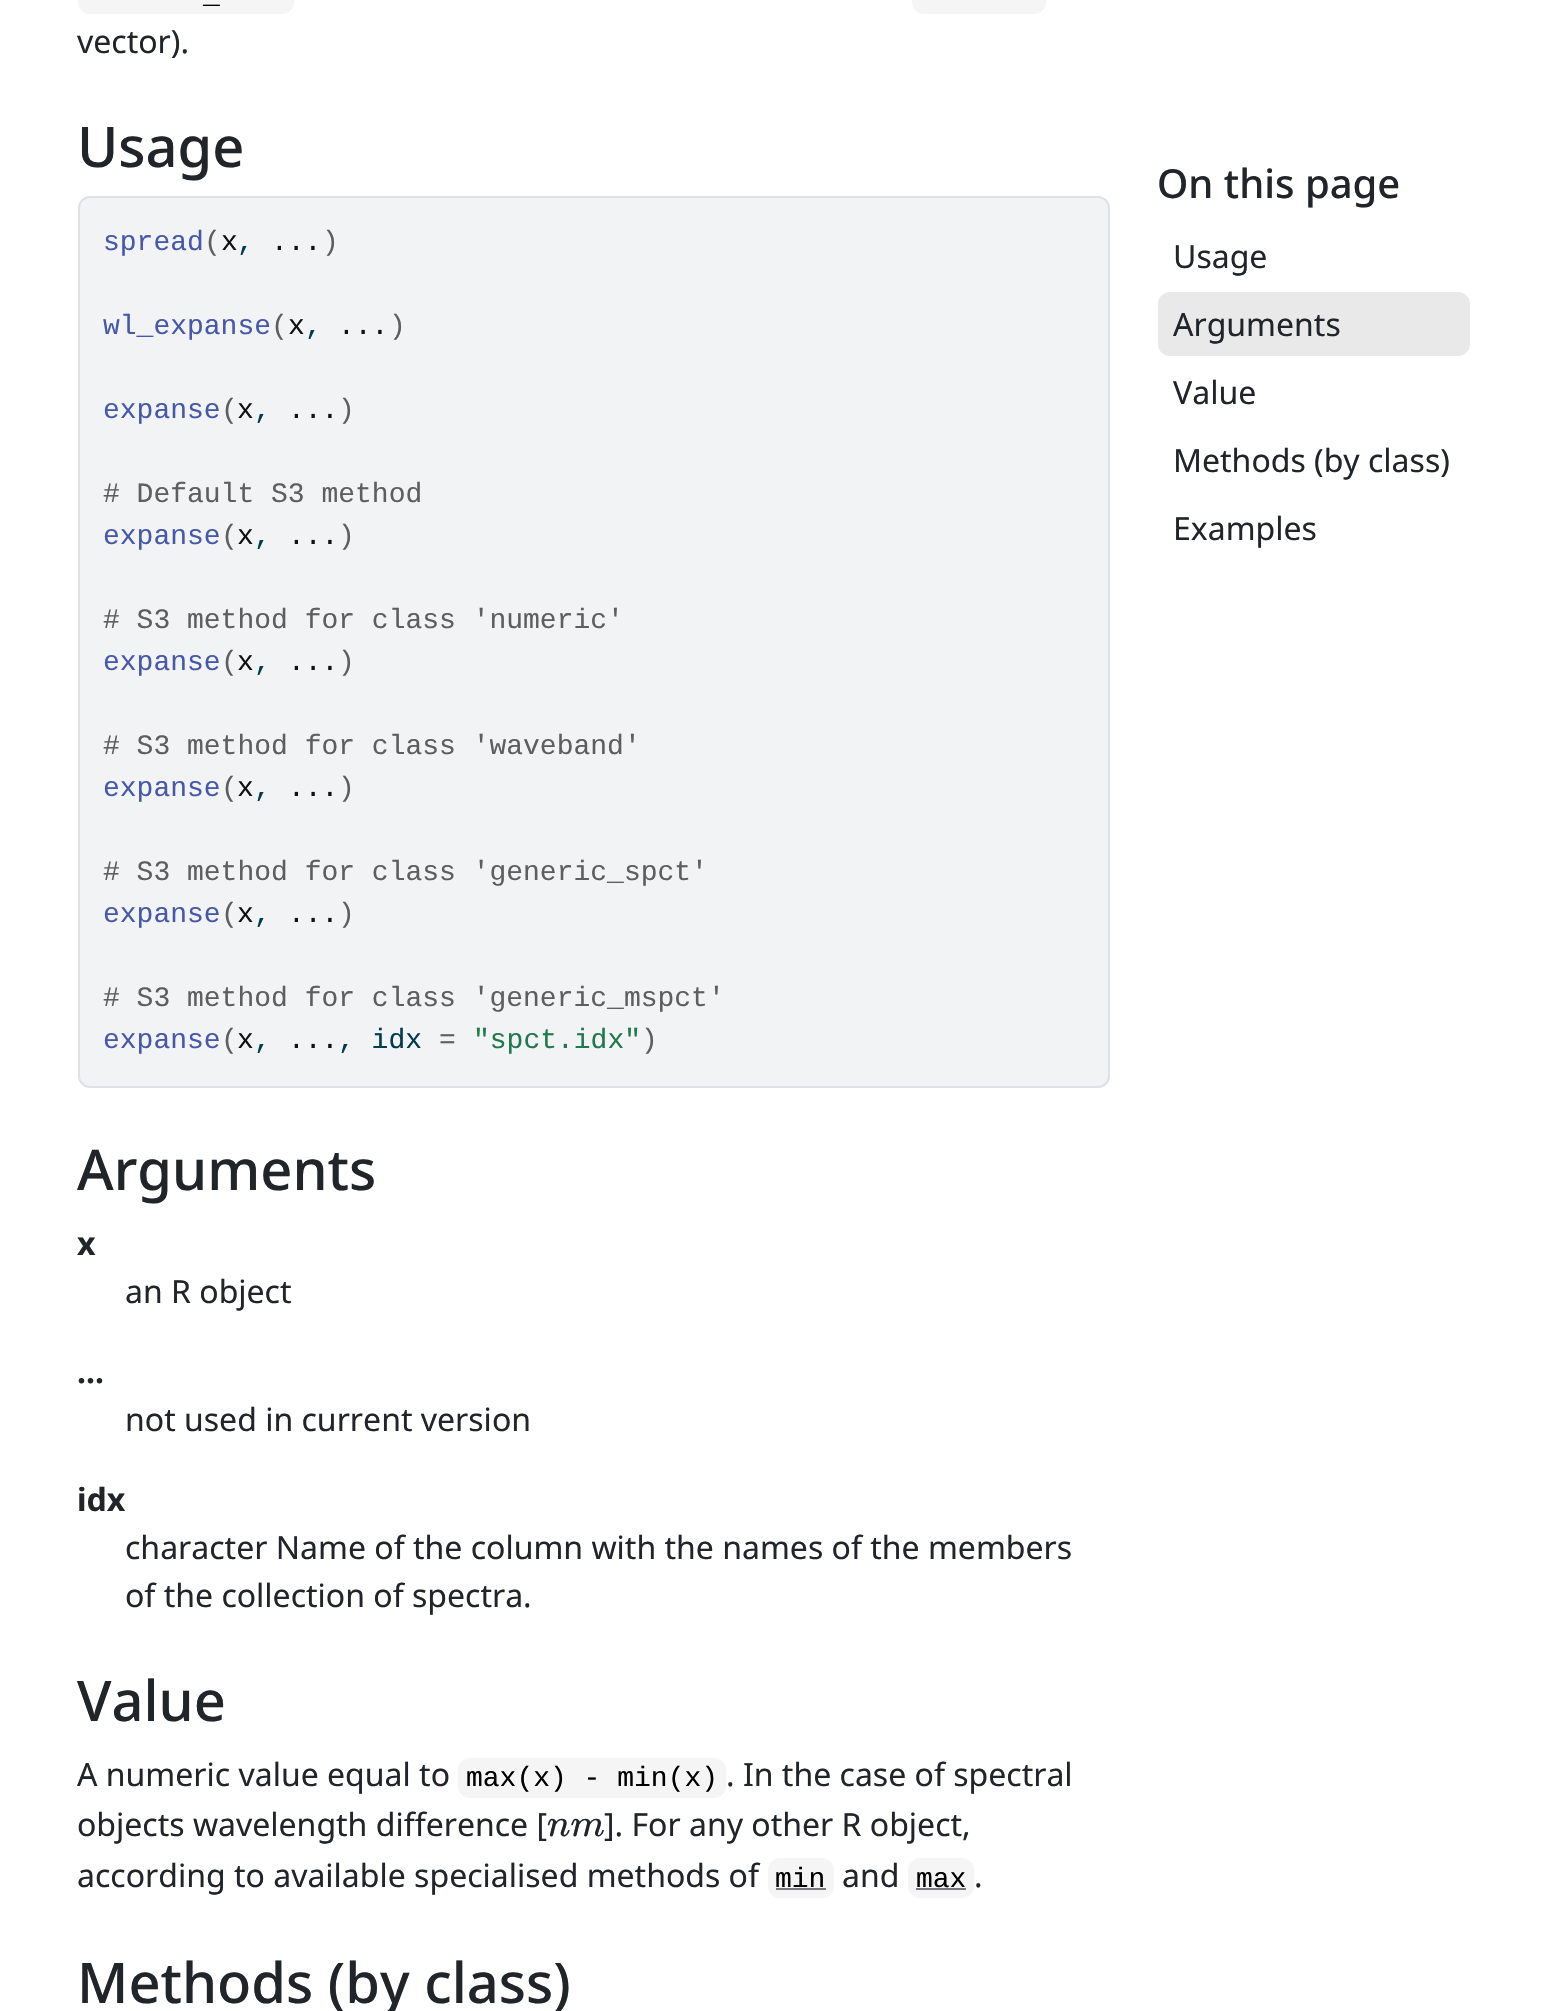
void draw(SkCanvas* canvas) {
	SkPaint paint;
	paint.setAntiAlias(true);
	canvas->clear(0xffffffff);
	paint.setColor(0xfff5f5f5);
	canvas->drawRoundRect(SkRect::MakeXYWH(78, -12, 216, 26), 12, 12, paint);
	SkFont f1(fontMgr->matchFamilyStyle("Liberation Mono", SkFontStyle::Normal()), 28);
	f1.setSubpixel(true);
	paint.setColor(0xff000000);
	canvas->drawString("_", 203, 3, f1, paint);
	paint.setColor(0xfff5f5f5);
	canvas->drawRoundRect(SkRect::MakeXYWH(912, -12, 134, 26), 12, 12, paint);
	SkFont f2(fontMgr->matchFamilyStyle("Noto Sans", SkFontStyle::Normal()), 32);
	f2.setSubpixel(true);
	paint.setColor(0xff212529);
	canvas->drawString("vector).", 77, 53, f2, paint);
	SkFont f3(fontMgr->matchFamilyStyle("Noto Sans", SkFontStyle(500, SkFontStyle::kNormal_Width, SkFontStyle::kUpright_Slant)), 56);
	f3.setSubpixel(true);
	canvas->drawString("Usage", 77, 167, f3, paint);
	paint.setColor(0xfff1f3f5);
	canvas->drawRoundRect(SkRect::MakeXYWH(79, 197, 1030, 890), 11, 11, paint);
	paint.setStroke(true);
	paint.setStrokeWidth(2);
	paint.setColor(0xffdee2e6);
	canvas->drawRoundRect(SkRect::MakeXYWH(79, 197, 1030, 890), 11, 11, paint);
	paint.setStroke(false);
	paint.setColor(0xff4758ab);
	canvas->drawString("spread", 103, 250, f1, paint);
	paint.setColor(0xff5e5e5e);
	canvas->drawString("(", 204, 250, f1, paint);
	paint.setColor(0xff111111);
	canvas->drawString("x", 221, 250, f1, paint);
	paint.setColor(0xff003b4f);
	canvas->drawString(",", 237, 250, f1, paint);
	paint.setColor(0xff111111);
	canvas->drawString("...", 271, 250, f1, paint);
	paint.setColor(0xff5e5e5e);
	canvas->drawString(")", 322, 250, f1, paint);
	paint.setColor(0xff4758ab);
	canvas->drawString("wl_expanse", 103, 334, f1, paint);
	paint.setColor(0xff5e5e5e);
	canvas->drawString("(", 271, 334, f1, paint);
	paint.setColor(0xff111111);
	canvas->drawString("x", 288, 334, f1, paint);
	paint.setColor(0xff003b4f);
	canvas->drawString(",", 305, 334, f1, paint);
	paint.setColor(0xff111111);
	canvas->drawString("...", 338, 334, f1, paint);
	paint.setColor(0xff5e5e5e);
	canvas->drawString(")", 389, 334, f1, paint);
	paint.setColor(0xff4758ab);
	canvas->drawString("expanse", 103, 418, f1, paint);
	paint.setColor(0xff5e5e5e);
	canvas->drawString("(", 221, 418, f1, paint);
	paint.setColor(0xff111111);
	canvas->drawString("x", 237, 418, f1, paint);
	paint.setColor(0xff003b4f);
	canvas->drawString(",", 254, 418, f1, paint);
	paint.setColor(0xff111111);
	canvas->drawString("...", 288, 418, f1, paint);
	paint.setColor(0xff5e5e5e);
	canvas->drawString(")", 338, 418, f1, paint);
	canvas->drawString("# Default S3 method", 103, 502, f1, paint);
	paint.setColor(0xff4758ab);
	canvas->drawString("expanse", 103, 544, f1, paint);
	paint.setColor(0xff5e5e5e);
	canvas->drawString("(", 221, 544, f1, paint);
	paint.setColor(0xff111111);
	canvas->drawString("x", 237, 544, f1, paint);
	paint.setColor(0xff003b4f);
	canvas->drawString(",", 254, 544, f1, paint);
	paint.setColor(0xff111111);
	canvas->drawString("...", 288, 544, f1, paint);
	paint.setColor(0xff5e5e5e);
	canvas->drawString(")", 338, 544, f1, paint);
	canvas->drawString("# S3 method for class 'numeric'", 103, 628, f1, paint);
	paint.setColor(0xff4758ab);
	canvas->drawString("expanse", 103, 670, f1, paint);
	paint.setColor(0xff5e5e5e);
	canvas->drawString("(", 221, 670, f1, paint);
	paint.setColor(0xff111111);
	canvas->drawString("x", 237, 670, f1, paint);
	paint.setColor(0xff003b4f);
	canvas->drawString(",", 254, 670, f1, paint);
	paint.setColor(0xff111111);
	canvas->drawString("...", 288, 670, f1, paint);
	paint.setColor(0xff5e5e5e);
	canvas->drawString(")", 338, 670, f1, paint);
	canvas->drawString("# S3 method for class 'waveband'", 103, 754, f1, paint);
	paint.setColor(0xff4758ab);
	canvas->drawString("expanse", 103, 796, f1, paint);
	paint.setColor(0xff5e5e5e);
	canvas->drawString("(", 221, 796, f1, paint);
	paint.setColor(0xff111111);
	canvas->drawString("x", 237, 796, f1, paint);
	paint.setColor(0xff003b4f);
	canvas->drawString(",", 254, 796, f1, paint);
	paint.setColor(0xff111111);
	canvas->drawString("...", 288, 796, f1, paint);
	paint.setColor(0xff5e5e5e);
	canvas->drawString(")", 338, 796, f1, paint);
	canvas->drawString("# S3 method for class 'generic_spct'", 103, 880, f1, paint);
	paint.setColor(0xff4758ab);
	canvas->drawString("expanse", 103, 922, f1, paint);
	paint.setColor(0xff5e5e5e);
	canvas->drawString("(", 221, 922, f1, paint);
	paint.setColor(0xff111111);
	canvas->drawString("x", 237, 922, f1, paint);
	paint.setColor(0xff003b4f);
	canvas->drawString(",", 254, 922, f1, paint);
	paint.setColor(0xff111111);
	canvas->drawString("...", 288, 922, f1, paint);
	paint.setColor(0xff5e5e5e);
	canvas->drawString(")", 338, 922, f1, paint);
	canvas->drawString("# S3 method for class 'generic_mspct'", 103, 1006, f1, paint);
	paint.setColor(0xff4758ab);
	canvas->drawString("expanse", 103, 1048, f1, paint);
	paint.setColor(0xff5e5e5e);
	canvas->drawString("(", 221, 1048, f1, paint);
	paint.setColor(0xff111111);
	canvas->drawString("x", 237, 1048, f1, paint);
	paint.setColor(0xff003b4f);
	canvas->drawString(", idx", 338, 1048, f1, paint);
	paint.setColor(0xff5e5e5e);
	canvas->drawString("=", 439, 1048, f1, paint);
	paint.setColor(0xff20794d);
	canvas->drawString("\"spct.idx\"", 473, 1048, f1, paint);
	paint.setColor(0xff5e5e5e);
	canvas->drawString(")", 641, 1048, f1, paint);
	paint.setColor(0xff003b4f);
	canvas->drawString(",", 254, 1048, f1, paint);
	paint.setColor(0xff111111);
	canvas->drawString("...", 288, 1048, f1, paint);
	paint.setColor(0xff212529);
	canvas->drawString("Arguments", 77, 1190, f3, paint);
	SkFont f4(fontMgr->matchFamilyStyle("Noto Sans", SkFontStyle::Bold()), 32);
	f4.setSubpixel(true);
	canvas->drawString("x", 77, 1255, f4, paint);
	canvas->drawString("an R object", 125, 1303, f2, paint);
	canvas->drawString("...", 77, 1383, f4, paint);
	canvas->drawString("not used in current version", 125, 1431, f2, paint);
	canvas->drawString("idx", 77, 1511, f4, paint);
	canvas->drawString("character Name of the column with the names of the members", 125, 1559, f2, paint);
	canvas->drawString("of the collection of spectra.", 125, 1607, f2, paint);
	canvas->drawString("Value", 77, 1721, f3, paint);
	canvas->drawString("A numeric value equal to", 77, 1786, f2, paint);
	paint.setColor(0xfff5f5f5);
	canvas->drawRoundRect(SkRect::MakeXYWH(458, 1758, 268, 40), 12, 12, paint);
	paint.setColor(0xff000000);
	canvas->drawString("max(x) - min(x)", 466, 1786, f1, paint);
	paint.setColor(0xff212529);
	canvas->drawString(". In the case of spectral", 726, 1786, f2, paint);
	canvas->drawString("objects wavelength difference [", 77, 1836, f2, paint);
	SkFont f5(fontMgr->matchFamilyStyle("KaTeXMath", SkFontStyle::Italic()), 39);
	f5.setSubpixel(true);
	canvas->drawString("nm", 547, 1836, f5, paint);
	canvas->drawString("]. For any other R object,", 604, 1836, f2, paint);
	canvas->drawString("according to available specialised methods of", 77, 1887, f2, paint);
	paint.setColor(0xfff5f5f5);
	canvas->drawRoundRect(SkRect::MakeXYWH(768, 1858, 66, 40), 12, 12, paint);
	paint.setColor(0xff000000);
	canvas->drawString("min", 775, 1887, f1, paint);
	paint.setColor(0xff76787b);
	canvas->drawRect(SkRect::MakeXYWH(776, 1888, 50, 2), paint);
	paint.setColor(0xff212529);
	canvas->drawString("and", 842, 1887, f2, paint);
	paint.setColor(0xfff5f5f5);
	canvas->drawRoundRect(SkRect::MakeXYWH(908, 1858, 66, 40), 12, 12, paint);
	paint.setColor(0xff000000);
	canvas->drawString("max", 916, 1887, f1, paint);
	paint.setColor(0xff76787b);
	canvas->drawRect(SkRect::MakeXYWH(916, 1888, 50, 2), paint);
	paint.setColor(0xff212529);
	canvas->drawString(".", 974, 1887, f2, paint);
	canvas->drawString("Methods (by class)", 77, 2003, f3, paint);
	SkFont f6(fontMgr->matchFamilyStyle("Noto Sans", SkFontStyle(500, SkFontStyle::kNormal_Width, SkFontStyle::kUpright_Slant)), 40);
	f6.setSubpixel(true);
	canvas->drawString("On this page", 1157, 198, f6, paint);
	canvas->drawString("Usage", 1173, 268, f2, paint);
	paint.setColor(0xffe9e9ea);
	canvas->drawRoundRect(SkRect::MakeXYWH(1158, 292, 312, 64), 12, 12, paint);
	paint.setColor(0xff212529);
	canvas->drawString("Arguments", 1173, 336, f2, paint);
	canvas->drawString("Value", 1173, 404, f2, paint);
	canvas->drawString("Methods (by class)", 1173, 472, f2, paint);
	canvas->drawString("Examples", 1173, 540, f2, paint);
}
